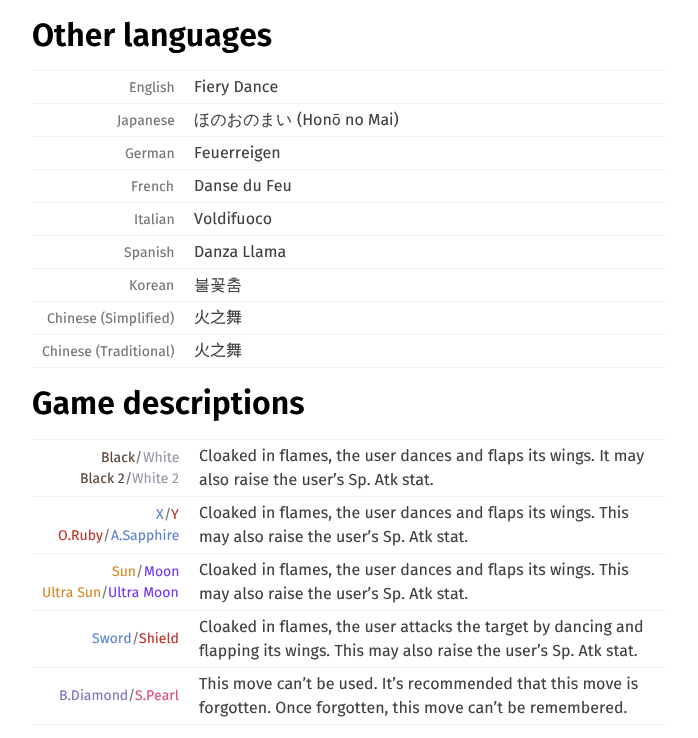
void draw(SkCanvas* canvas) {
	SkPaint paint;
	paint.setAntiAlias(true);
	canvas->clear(0xffffffff);
	SkFont f1(fontMgr->matchFamilyStyle("Fira Sans", SkFontStyle(600, SkFontStyle::kNormal_Width, SkFontStyle::kUpright_Slant)), 32);
	f1.setSubpixel(true);
	paint.setColor(0xff000000);
	canvas->drawString("Other languages", 32, 46, f1, paint);
	SkFont f2(fontMgr->matchFamilyStyle("Fira Sans", SkFontStyle::Normal()), 14);
	f2.setSubpixel(true);
	paint.setColor(0xff737373);
	canvas->drawString("English", 129, 92, f2, paint);
	paint.setColor(0xfff0f0f0);
	canvas->drawRect(SkRect::MakeXYWH(32, 70, 634, 1), paint);
	SkFont f3(fontMgr->matchFamilyStyle("Fira Sans", SkFontStyle::Normal()), 16);
	f3.setSubpixel(true);
	paint.setColor(0xff404040);
	canvas->drawString("Fiery Dance", 194, 92, f3, paint);
	paint.setColor(0xff737373);
	canvas->drawString("Japanese", 117, 125, f2, paint);
	paint.setColor(0xfff0f0f0);
	canvas->drawRect(SkRect::MakeXYWH(32, 103, 634, 1), paint);
	SkFont f4(fontMgr->matchFamilyStyle("WenQuanYi Zen Hei", SkFontStyle(500, SkFontStyle::kNormal_Width, SkFontStyle::kUpright_Slant)), 16);
	f4.setSubpixel(true);
	paint.setColor(0xff404040);
	canvas->drawString("ほのおのまい", 194, 125, f4, paint);
	canvas->drawString("(Hon", 297, 125, f3, paint);
	canvas->drawString("ō", 332, 125, f4, paint);
	canvas->drawString("no Mai)", 345, 125, f3, paint);
	paint.setColor(0xff737373);
	canvas->drawString("German", 125, 158, f2, paint);
	paint.setColor(0xfff0f0f0);
	canvas->drawRect(SkRect::MakeXYWH(32, 136, 634, 1), paint);
	paint.setColor(0xff404040);
	canvas->drawString("Feuerreigen", 194, 158, f3, paint);
	paint.setColor(0xff737373);
	canvas->drawString("French", 131, 191, f2, paint);
	paint.setColor(0xfff0f0f0);
	canvas->drawRect(SkRect::MakeXYWH(32, 169, 634, 1), paint);
	paint.setColor(0xff404040);
	canvas->drawString("Danse du Feu", 194, 191, f3, paint);
	paint.setColor(0xff737373);
	canvas->drawString("Italian", 134, 224, f2, paint);
	paint.setColor(0xfff0f0f0);
	canvas->drawRect(SkRect::MakeXYWH(32, 202, 634, 1), paint);
	paint.setColor(0xff404040);
	canvas->drawString("Voldifuoco", 194, 224, f3, paint);
	paint.setColor(0xff737373);
	canvas->drawString("Spanish", 124, 257, f2, paint);
	paint.setColor(0xfff0f0f0);
	canvas->drawRect(SkRect::MakeXYWH(32, 235, 634, 1), paint);
	paint.setColor(0xff404040);
	canvas->drawString("Danza Llama", 194, 257, f3, paint);
	paint.setColor(0xff737373);
	canvas->drawString("Korean", 129, 290, f2, paint);
	paint.setColor(0xfff0f0f0);
	canvas->drawRect(SkRect::MakeXYWH(32, 268, 634, 1), paint);
	paint.setColor(0xff404040);
	canvas->drawString("불꽃춤", 194, 290, f4, paint);
	paint.setColor(0xff737373);
	canvas->drawString("Chinese (Simplified)", 47, 323, f2, paint);
	paint.setColor(0xfff0f0f0);
	canvas->drawRect(SkRect::MakeXYWH(32, 301, 634, 1), paint);
	SkFont f5(fontMgr->matchFamilyStyle("Noto Sans CJK SC", SkFontStyle::Normal()), 16);
	f5.setSubpixel(true);
	paint.setColor(0xff404040);
	canvas->drawString("火之舞", 194, 323, f5, paint);
	paint.setColor(0xff737373);
	canvas->drawString("Chinese (Traditional)", 42, 356, f2, paint);
	paint.setColor(0xfff0f0f0);
	canvas->drawRect(SkRect::MakeXYWH(32, 334, 634, 1), paint);
	canvas->drawRect(SkRect::MakeXYWH(32, 367, 634, 1), paint);
	paint.setColor(0xff404040);
	canvas->drawString("火之舞", 194, 356, f5, paint);
	paint.setColor(0xff000000);
	canvas->drawString("Game descriptions", 32, 414, f1, paint);
	paint.setColor(0xff574438);
	canvas->drawString("Black", 101, 462, f2, paint);
	paint.setColor(0xff737373);
	canvas->drawString("/", 135, 462, f2, paint);
	paint.setColor(0xff9797ab);
	canvas->drawString("White", 143, 462, f2, paint);
	paint.setColor(0xff574438);
	canvas->drawString("Black 2", 80, 483, f2, paint);
	paint.setColor(0xff737373);
	canvas->drawString("/", 125, 483, f2, paint);
	paint.setColor(0xff9797ab);
	canvas->drawString("White 2", 132, 483, f2, paint);
	paint.setColor(0xfff0f0f0);
	canvas->drawRect(SkRect::MakeXYWH(32, 439, 634, 1), paint);
	paint.setColor(0xff404040);
	canvas->drawString("Cloaked in flames, the user dances and flaps its wings. It may", 199, 461, f3, paint);
	canvas->drawString("also raise the user’s Sp. Atk stat.", 199, 485, f3, paint);
	paint.setColor(0xff5d81d6);
	canvas->drawString("X", 156, 519, f2, paint);
	paint.setColor(0xff737373);
	canvas->drawString("/", 164, 519, f2, paint);
	paint.setColor(0xffc03028);
	canvas->drawString("Y", 171, 519, f2, paint);
	canvas->drawString("O.Ruby", 58, 540, f2, paint);
	paint.setColor(0xff737373);
	canvas->drawString("/", 103, 540, f2, paint);
	paint.setColor(0xff5d81d6);
	canvas->drawString("A.Sapphire", 111, 540, f2, paint);
	paint.setColor(0xfff0f0f0);
	canvas->drawRect(SkRect::MakeXYWH(32, 496, 634, 1), paint);
	paint.setColor(0xff404040);
	canvas->drawString("Cloaked in flames, the user dances and flaps its wings. This", 199, 518, f3, paint);
	canvas->drawString("may also raise the user’s Sp. Atk stat.", 199, 542, f3, paint);
	paint.setColor(0xffdb8624);
	canvas->drawString("Sun", 112, 576, f2, paint);
	paint.setColor(0xff737373);
	canvas->drawString("/", 136, 576, f2, paint);
	paint.setColor(0xff7038f8);
	canvas->drawString("Moon", 144, 576, f2, paint);
	paint.setColor(0xffdb8624);
	canvas->drawString("Ultra Sun", 42, 597, f2, paint);
	paint.setColor(0xff737373);
	canvas->drawString("/", 101, 597, f2, paint);
	paint.setColor(0xff7038f8);
	canvas->drawString("Ultra Moon", 108, 597, f2, paint);
	paint.setColor(0xfff0f0f0);
	canvas->drawRect(SkRect::MakeXYWH(32, 553, 634, 1), paint);
	paint.setColor(0xff404040);
	canvas->drawString("Cloaked in flames, the user dances and flaps its wings. This", 199, 575, f3, paint);
	canvas->drawString("may also raise the user’s Sp. Atk stat.", 199, 599, f3, paint);
	paint.setColor(0xff5d81d6);
	canvas->drawString("Sword", 92, 643, f2, paint);
	paint.setColor(0xff737373);
	canvas->drawString("/", 132, 643, f2, paint);
	paint.setColor(0xffc03028);
	canvas->drawString("Shield", 139, 643, f2, paint);
	paint.setColor(0xfff0f0f0);
	canvas->drawRect(SkRect::MakeXYWH(32, 610, 634, 1), paint);
	paint.setColor(0xff404040);
	canvas->drawString("Cloaked in flames, the user attacks the target by dancing and", 199, 632, f3, paint);
	canvas->drawString("flapping its wings. This may also raise the user’s Sp. Atk stat.", 199, 656, f3, paint);
	paint.setColor(0xff8471bd);
	canvas->drawString("B.Diamond", 59, 700, f2, paint);
	paint.setColor(0xff737373);
	canvas->drawString("/", 128, 700, f2, paint);
	paint.setColor(0xffde4f7a);
	canvas->drawString("S.Pearl", 135, 700, f2, paint);
	paint.setColor(0xfff0f0f0);
	canvas->drawRect(SkRect::MakeXYWH(32, 667, 634, 1), paint);
	paint.setColor(0xff404040);
	canvas->drawString("This move can’t be used. It’s recommended that this move is", 199, 689, f3, paint);
	canvas->drawString("forgotten. Once forgotten, this move can’t be remembered.", 199, 713, f3, paint);
	paint.setColor(0xfff0f0f0);
	canvas->drawRect(SkRect::MakeXYWH(32, 724, 634, 1), paint);
}
